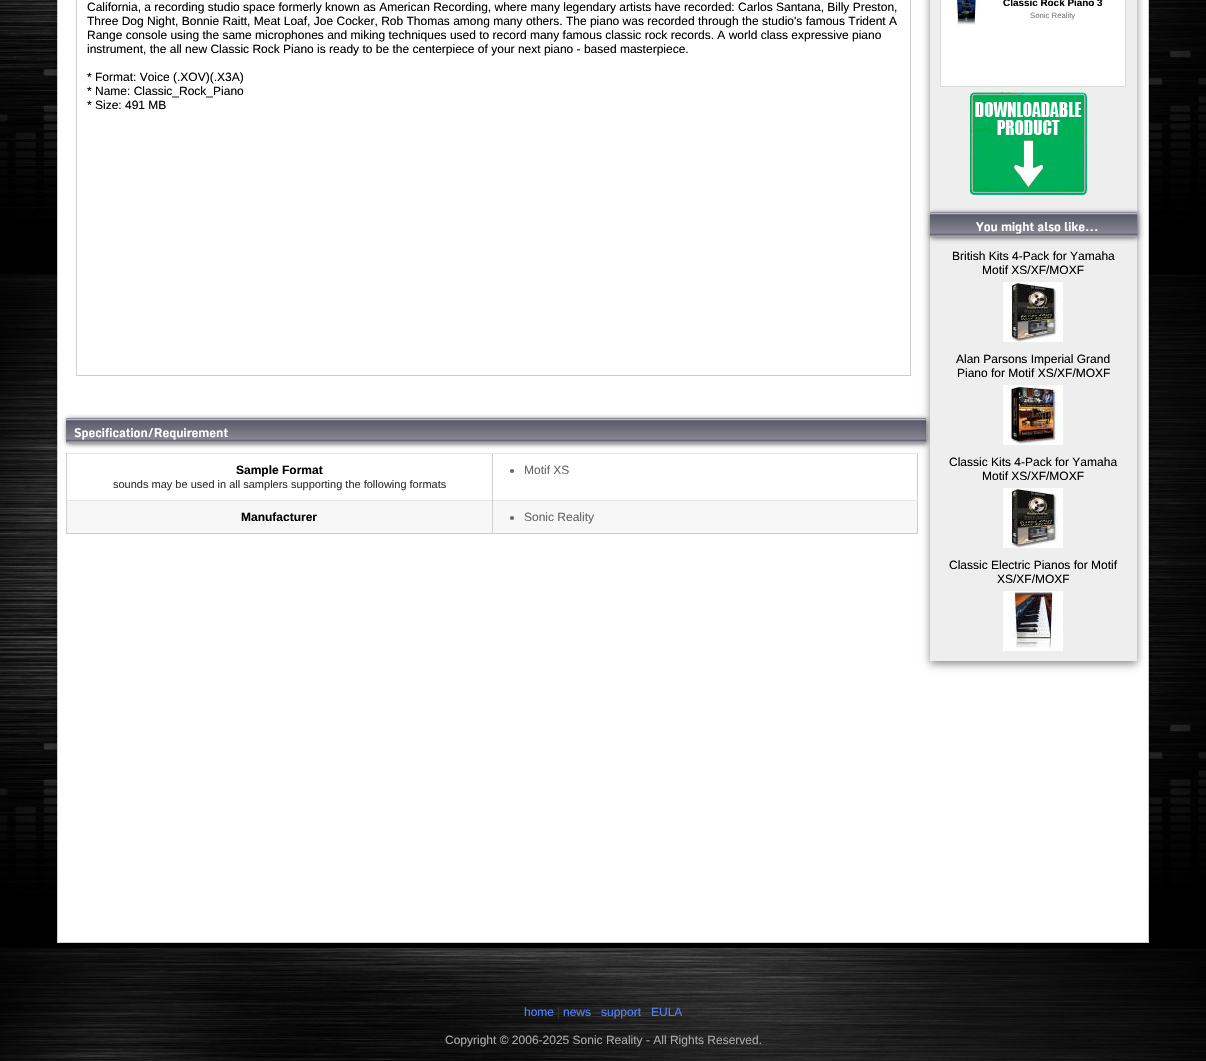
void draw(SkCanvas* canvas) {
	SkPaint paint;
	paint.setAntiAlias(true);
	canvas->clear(0xffffffff);
	canvas->drawImageRect(SkImages::DeferredFromEncodedData(SkData::MakeFromFileName("img1.png")), SkRect::MakeXYWH(0, 0, 1206, 1061), SkSamplingOptions());
	paint.setColor(0x4d000000);
	paint.setMaskFilter(SkMaskFilter::MakeBlur(kNormal_SkBlurStyle, 2.5));
	canvas->drawRect(SkRect::MakeXYWH(57, -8, 1092, 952), paint);
	paint.setMaskFilter(nullptr);
	paint.setColor(0xffffffff);
	canvas->drawRect(SkRect::MakeXYWH(57.5, -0.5, 1091, 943), paint);
	paint.setStroke(true);
	paint.setStrokeWidth(1);
	paint.setColor(0xffcccccc);
	canvas->drawRect(SkRect::MakeXYWH(57.5, -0.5, 1091, 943), paint);
	paint.setStroke(false);
	canvas->drawRect(SkRect::MakeXYWH(910, 0, 1, 376), paint);
	canvas->drawRect(SkRect::MakeXYWH(76, 375, 835, 1), paint);
	paint.setColor(0xffcfcfcf);
	canvas->drawRect(SkRect::MakeXYWH(76, 0, 1, 376), paint);
	SkFont f1(fontMgr->matchFamilyStyle("Liberation Sans", SkFontStyle::Normal()), 12);
	f1.setSubpixel(true);
	paint.setColor(0xff000000);
	canvas->drawString("California, a recording studio space formerly known as American Recording, where many legendary artists have recorded: Carlos Santana, Billy Preston,", 87, 11, f1, paint);
	canvas->drawString("Three Dog Night, Bonnie Raitt, Meat Loaf, Joe Cocker, Rob Thomas among many others. The piano was recorded through the studio's famous Trident A", 87, 25, f1, paint);
	canvas->drawString("Range console using the same microphones and miking techniques used to record many famous classic rock records. A world class expressive piano", 87, 39, f1, paint);
	canvas->drawString("instrument, the all new Classic Rock Piano is ready to be the centerpiece of your next piano - based masterpiece.", 87, 53, f1, paint);
	canvas->drawString("* Format: Voice (.XOV)(.X3A)", 87, 81, f1, paint);
	canvas->drawString("* Name: Classic_Rock_Piano", 87, 95, f1, paint);
	canvas->drawString("* Size: 491 MB", 87, 109, f1, paint);
	paint.setColor(0xbf323232);
	paint.setMaskFilter(SkMaskFilter::MakeBlur(kNormal_SkBlurStyle, 2.5));
	canvas->drawRect(SkRect::MakeXYWH(67, 419, 860, 25), paint);
	paint.setMaskFilter(nullptr);
	{
		const SkColor colors[] = {0xff65626d, 0xffb0b2c9, 0xffb9bad6, 0xff585b68, 0xff888693, 0xff67646d, 0xff97949e, 0xffababb7};
		const float stops[] = {0, 0.04, 0.06, 0.11, 0.84, 0.9, 0.95, 1};
		const SkPoint ends[] = {{496, 418}, {496, 443}};
		paint.setShader(SkGradientShader::MakeLinear(ends, colors, stops, 8, SkTileMode::kClamp));
		paint.setAlpha(255);
	}
	canvas->drawRect(SkRect::MakeXYWH(66, 418, 860, 25), paint);
	SkFont f2(fontMgr->matchFamilyStyle("Monda", SkFontStyle::Bold()), 12);
	f2.setSubpixel(true);
	paint.setShader(nullptr);
	paint.setColor(0xffffffff);
	canvas->drawString("Specification/Requirement", 74, 437, f2, paint);
	paint.setColor(0xffcccccc);
	canvas->drawRect(SkRect::MakeXYWH(917, 453, 1, 81), paint);
	canvas->drawRect(SkRect::MakeXYWH(66, 533, 852, 1), paint);
	paint.setColor(0xffe6e6e6);
	canvas->drawRect(SkRect::MakeXYWH(492, 453, 426, 1), paint);
	canvas->drawRect(SkRect::MakeXYWH(492, 500, 426, 1), paint);
	paint.setColor(0xfff7f7f7);
	canvas->drawRect(SkRect::MakeXYWH(67, 501, 850, 32), paint);
	paint.setColor(0xffcfcfcf);
	canvas->drawRect(SkRect::MakeXYWH(492, 500, 1, 34), paint);
	paint.setColor(0xffe6e6e6);
	canvas->drawRect(SkRect::MakeXYWH(66, 500, 427, 1), paint);
	paint.setColor(0xffcfcfcf);
	canvas->drawRect(SkRect::MakeXYWH(492, 453, 1, 48), paint);
	paint.setColor(0xffe6e6e6);
	canvas->drawRect(SkRect::MakeXYWH(66, 453, 427, 1), paint);
	paint.setColor(0xffcfcfcf);
	canvas->drawRect(SkRect::MakeXYWH(66, 500, 1, 34), paint);
	canvas->drawRect(SkRect::MakeXYWH(66, 453, 1, 48), paint);
	SkFont f3(fontMgr->matchFamilyStyle("Liberation Sans", SkFontStyle::Bold()), 12);
	f3.setSubpixel(true);
	paint.setColor(0xff000000);
	canvas->drawString("Sample Format", 236, 474, f3, paint);
	SkFont f4(fontMgr->matchFamilyStyle("Liberation Sans", SkFontStyle::Normal()), 11);
	f4.setSubpixel(true);
	paint.setColor(0xff333333);
	canvas->drawString("sounds may be used in all samplers supporting the following formats", 113, 488, f4, paint);
	paint.setColor(0xff666666);
	canvas->drawCircle(512, 471, 2, paint);
	canvas->drawString("Motif XS", 524, 474, f1, paint);
	paint.setColor(0xff000000);
	canvas->drawString("Manufacturer", 241, 521, f3, paint);
	paint.setColor(0xff666666);
	canvas->drawCircle(512, 518, 2, paint);
	canvas->drawString("Sonic Reality", 524, 521, f1, paint);
	paint.setColor(0x73000000);
	paint.setMaskFilter(SkMaskFilter::MakeBlur(kNormal_SkBlurStyle, 4));
	canvas->drawRect(SkRect::MakeXYWH(930, -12, 207, 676), paint);
	paint.setMaskFilter(nullptr);
	paint.setColor(0xffeeeeee);
	canvas->drawRect(SkRect::MakeXYWH(930, 0, 207, 661), paint);
	paint.setColor(0xffffffff);
	canvas->drawRect(SkRect::MakeXYWH(940.5, -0.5, 185, 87), paint);
	paint.setStroke(true);
	paint.setColor(0xffd9d9d9);
	canvas->drawRect(SkRect::MakeXYWH(940.5, -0.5, 185, 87), paint);
	canvas->drawImageRect(SkImages::DeferredFromEncodedData(SkData::MakeFromFileName("img2.png")), SkRect::MakeXYWH(951, 0, 28, 25), SkSamplingOptions());
	SkFont f5(fontMgr->matchFamilyStyle("Liberation Sans", SkFontStyle::Bold()), 9.9);
	f5.setSubpixel(true);
	paint.setStroke(false);
	paint.setColor(0xff000000);
	canvas->drawString("Classic Rock Piano 3", 1003, 6, f5, paint);
	SkFont f6(fontMgr->matchFamilyStyle("Liberation Sans", SkFontStyle::Normal()), 7.75);
	f6.setSubpixel(true);
	paint.setColor(0xff7c7c7c);
	canvas->drawString("Sonic Reality", 1030, 18, f6, paint);
	canvas->drawImageRect(SkImages::DeferredFromEncodedData(SkData::MakeFromFileName("img3.png")), SkRect::MakeXYWH(970, 92, 117, 104), SkSamplingOptions());
	paint.setColor(0xbf323232);
	paint.setMaskFilter(SkMaskFilter::MakeBlur(kNormal_SkBlurStyle, 2.5));
	canvas->drawRect(SkRect::MakeXYWH(931, 213, 207, 25), paint);
	paint.setMaskFilter(nullptr);
	{
		const SkColor colors[] = {0xff65626d, 0xffb0b2c9, 0xffb9bad6, 0xff585b68, 0xff888693, 0xff67646d, 0xff97949e, 0xffababb7};
		const float stops[] = {0, 0.04, 0.06, 0.11, 0.84, 0.9, 0.95, 1};
		const SkPoint ends[] = {{1034, 212}, {1034, 237}};
		paint.setShader(SkGradientShader::MakeLinear(ends, colors, stops, 8, SkTileMode::kClamp));
		paint.setAlpha(255);
	}
	canvas->drawRect(SkRect::MakeXYWH(930, 212, 207, 25), paint);
	paint.setShader(nullptr);
	paint.setColor(0xffffffff);
	canvas->drawString("You might also like...", 976, 231, f2, paint);
	paint.setColor(0xff000000);
	canvas->drawString("British Kits 4-Pack for Yamaha", 952, 260, f1, paint);
	canvas->drawString("Motif XS/XF/MOXF", 982, 274, f1, paint);
	canvas->drawImageRect(SkImages::DeferredFromEncodedData(SkData::MakeFromFileName("img4.png")), SkRect::MakeXYWH(1003, 282, 60, 60), SkSamplingOptions());
	canvas->drawString("Alan Parsons Imperial Grand", 956, 363, f1, paint);
	canvas->drawString("Piano for Motif XS/XF/MOXF", 957, 377, f1, paint);
	canvas->drawImageRect(SkImages::DeferredFromEncodedData(SkData::MakeFromFileName("img5.png")), SkRect::MakeXYWH(1003, 385, 60, 60), SkSamplingOptions());
	canvas->drawString("Classic Kits 4-Pack for Yamaha", 949, 466, f1, paint);
	canvas->drawString("Motif XS/XF/MOXF", 982, 480, f1, paint);
	canvas->drawImageRect(SkImages::DeferredFromEncodedData(SkData::MakeFromFileName("img6.png")), SkRect::MakeXYWH(1003, 488, 60, 60), SkSamplingOptions());
	canvas->drawString("Classic Electric Pianos for Motif", 949, 569, f1, paint);
	canvas->drawString("XS/XF/MOXF", 997, 583, f1, paint);
	canvas->drawImageRect(SkImages::DeferredFromEncodedData(SkData::MakeFromFileName("img7.png")), SkRect::MakeXYWH(1003, 591, 60, 60), SkSamplingOptions());
	paint.setColor(0xff5482ff);
	canvas->drawString("home", 524, 1016, f1, paint);
	paint.setColor(0xff333333);
	canvas->drawString("|", 557, 1016, f1, paint);
	paint.setColor(0xff5482ff);
	canvas->drawString("news", 563, 1016, f1, paint);
	canvas->drawString("support", 601, 1016, f1, paint);
	canvas->drawString("EULA", 651, 1016, f1, paint);
	paint.setColor(0xffaaaaaa);
	canvas->drawString("Copyright © 2006-2025 Sonic Reality - All Rights Reserved.", 445, 1044, f1, paint);
}
